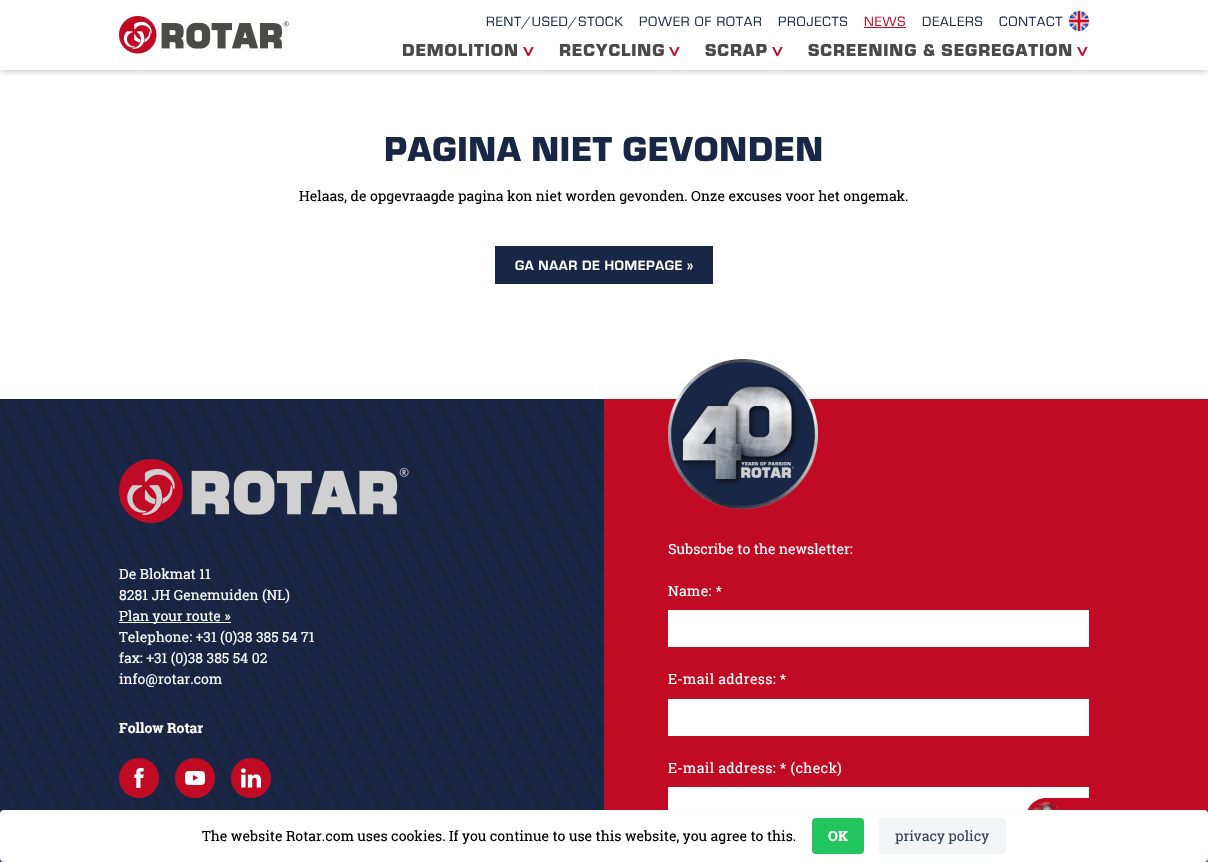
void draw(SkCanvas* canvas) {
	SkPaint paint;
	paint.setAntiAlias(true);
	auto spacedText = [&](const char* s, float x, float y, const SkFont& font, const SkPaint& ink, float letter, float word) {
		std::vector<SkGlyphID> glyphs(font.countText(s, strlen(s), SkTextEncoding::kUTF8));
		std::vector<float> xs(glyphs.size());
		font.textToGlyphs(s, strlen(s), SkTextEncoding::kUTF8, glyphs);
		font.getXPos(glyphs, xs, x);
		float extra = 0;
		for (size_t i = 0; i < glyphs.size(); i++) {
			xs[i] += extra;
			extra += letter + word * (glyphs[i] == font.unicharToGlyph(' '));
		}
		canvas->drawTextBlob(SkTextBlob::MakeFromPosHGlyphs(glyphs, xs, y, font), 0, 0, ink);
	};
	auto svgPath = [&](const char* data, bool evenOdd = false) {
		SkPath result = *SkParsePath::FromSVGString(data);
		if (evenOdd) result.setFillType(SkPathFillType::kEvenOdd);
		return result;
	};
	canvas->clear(0xffffffff);
	canvas->save();
	canvas->clipRect(SkRect::MakeXYWH(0, 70, 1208, 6));
	paint.setColor(0x4d000000);
	paint.setMaskFilter(SkMaskFilter::MakeBlur(kNormal_SkBlurStyle, 4));
	canvas->drawRect(SkRect::MakeXYWH(0, 0, 1208, 70), paint);
	paint.setMaskFilter(nullptr);
	canvas->restore();
	canvas->drawImageRect(SkImages::DeferredFromEncodedData(SkData::MakeFromFileName("img1.png")), SkRect::MakeXYWH(119, 16, 170, 38), SkSamplingOptions());
	SkFont f1(fontMgr->matchFamilyStyle("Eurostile", SkFontStyle::Normal()), 14);
	f1.setSubpixel(true);
	paint.setColor(0xff192746);
	spacedText("RENT/USED/STOCK", 486, 26, f1, paint, 0.75, 0);
	spacedText("POWER OF ROTAR", 639, 26, f1, paint, 0.75, 0);
	spacedText("PROJECTS", 778, 26, f1, paint, 0.75, 0);
	paint.setColor(0xffc10b25);
	spacedText("NEWS", 864, 26, f1, paint, 0.75, 0);
	canvas->drawRect(SkRect::MakeXYWH(864, 27, 42, 1), paint);
	paint.setColor(0xff192746);
	spacedText("DEALERS", 922, 26, f1, paint, 0.75, 0);
	spacedText("CONTACT", 999, 26, f1, paint, 0.75, 0);
	canvas->drawImageRect(SkImages::DeferredFromEncodedData(SkData::MakeFromFileName("img2.png")), SkRect::MakeXYWH(1069, 11, 20, 20), SkSamplingOptions());
	SkFont f2(fontMgr->matchFamilyStyle("Eurostile", SkFontStyle(900, SkFontStyle::kNormal_Width, SkFontStyle::kUpright_Slant)), 18);
	f2.setSubpixel(true);
	paint.setColor(0xff4a4a49);
	spacedText("DEMOLITION", 402, 56, f2, paint, 0.9, 0);
	canvas->drawImageRect(SkImages::DeferredFromEncodedData(SkData::MakeFromFileName("img3.png")), SkRect::MakeXYWH(523, 47, 11, 9), SkSamplingOptions());
	spacedText("RECYCLING", 559, 56, f2, paint, 0.9, 0);
	canvas->drawImageRect(SkImages::DeferredFromEncodedData(SkData::MakeFromFileName("img3.png")), SkRect::MakeXYWH(669, 47, 11, 9), SkSamplingOptions());
	spacedText("SCRAP", 705, 56, f2, paint, 0.9, 0);
	canvas->drawImageRect(SkImages::DeferredFromEncodedData(SkData::MakeFromFileName("img3.png")), SkRect::MakeXYWH(772, 47, 11, 9), SkSamplingOptions());
	spacedText("SCREENING & SEGREGATION", 808, 56, f2, paint, 0.9, 0);
	canvas->drawImageRect(SkImages::DeferredFromEncodedData(SkData::MakeFromFileName("img3.png")), SkRect::MakeXYWH(1077, 47, 11, 9), SkSamplingOptions());
	SkFont f3(fontMgr->matchFamilyStyle("Eurostile", SkFontStyle(900, SkFontStyle::kNormal_Width, SkFontStyle::kUpright_Slant)), 36);
	f3.setSubpixel(true);
	paint.setColor(0xff192746);
	spacedText("PAGINA NIET GEVONDEN", 384, 161, f3, paint, 0.75, 0);
	SkFont f4(fontMgr->matchFamilyStyle("Roboto Slab", SkFontStyle::Normal()), 14);
	f4.setSubpixel(true);
	paint.setColor(0xff000000);
	canvas->drawString("Helaas, de opgevraagde pagina kon niet worden gevonden. Onze excuses voor het ongemak.", 299, 201, f4, paint);
	paint.setColor(0xff192746);
	canvas->drawRect(SkRect::MakeXYWH(495, 246, 218, 38), paint);
	SkFont f5(fontMgr->matchFamilyStyle("Eurostile", SkFontStyle::Bold()), 14);
	f5.setSubpixel(true);
	paint.setColor(0xffffffff);
	spacedText("GA NAAR DE HOMEPAGE »", 515, 270, f5, paint, 0.6, 0);
	canvas->drawImageRect(SkImages::DeferredFromEncodedData(SkData::MakeFromFileName("img4.png")), SkRect::MakeXYWH(0, 399, 604, 463), SkSamplingOptions());
	canvas->drawImageRect(SkImages::DeferredFromEncodedData(SkData::MakeFromFileName("img5.png")), SkRect::MakeXYWH(119, 459, 290, 64), SkSamplingOptions());
	canvas->drawString("De Blokmat 11", 119, 579, f4, paint);
	canvas->drawString("8281 JH Genemuiden (NL)", 119, 600, f4, paint);
	canvas->drawRect(SkRect::MakeXYWH(119, 622, 112, 1), paint);
	canvas->drawString("Plan your route »", 119, 621, f4, paint);
	canvas->drawString("Telephone: +31 (0)38 385 54 71", 119, 642, f4, paint);
	canvas->drawString("fax: +31 (0)38 385 54 02", 119, 663, f4, paint);
	canvas->drawString("info@rotar.com", 119, 684, f4, paint);
	SkFont f6(fontMgr->matchFamilyStyle("Roboto Slab", SkFontStyle::Bold()), 14);
	f6.setSubpixel(true);
	canvas->drawString("Follow Rotar", 119, 733, f6, paint);
	paint.setColor(0xffc10b25);
	canvas->drawCircle(139, 778, 20, paint);
	canvas->drawImageRect(SkImages::DeferredFromEncodedData(SkData::MakeFromFileName("img6.png")), SkRect::MakeXYWH(134, 768, 10, 20), SkSamplingOptions());
	canvas->drawCircle(195, 778, 20, paint);
	canvas->drawImageRect(SkImages::DeferredFromEncodedData(SkData::MakeFromFileName("img7.png")), SkRect::MakeXYWH(185, 771, 20, 14), SkSamplingOptions());
	canvas->drawCircle(251, 778, 20, paint);
	canvas->drawImageRect(SkImages::DeferredFromEncodedData(SkData::MakeFromFileName("img8.png")), SkRect::MakeXYWH(241, 768, 20, 20), SkSamplingOptions());
	canvas->drawRect(SkRect::MakeXYWH(604, 399, 604, 463), paint);
	canvas->drawImageRect(SkImages::DeferredFromEncodedData(SkData::MakeFromFileName("img9.png")), SkRect::MakeXYWH(668, 359, 150, 150), SkSamplingOptions());
	paint.setColor(0xffffffff);
	canvas->drawString("Subscribe to the newsletter:", 668, 554, f4, paint);
	spacedText("Name: *", 668, 596, f4, paint, 0.35, 0);
	canvas->drawRect(SkRect::MakeXYWH(668, 610, 421, 37), paint);
	spacedText("E-mail address: *", 668, 684, f4, paint, 0.35, 0);
	canvas->drawRect(SkRect::MakeXYWH(668, 699, 421, 37), paint);
	spacedText("E-mail address: * (check)", 668, 773, f4, paint, 0.35, 0);
	canvas->drawRect(SkRect::MakeXYWH(668, 787, 421, 23), paint);
	paint.setColor(0x1a000000);
	paint.setMaskFilter(SkMaskFilter::MakeBlur(kNormal_SkBlurStyle, 1.5));
	canvas->drawRoundRect(SkRect::MakeXYWH(1026, 799, 182, 40), 20, 20, paint);
	paint.setMaskFilter(nullptr);
	paint.setColor(0xffc10b25);
	canvas->drawPath(svgPath("M1046 798H1208V838H1046C1035 838 1026 829 1026 818C1026 807 1035 798 1046 798Z"), paint);
	canvas->drawImageRect(SkImages::DeferredFromEncodedData(SkData::MakeFromFileName("img10.png")), SkRect::MakeXYWH(1032, 802, 29, 8), SkSamplingOptions());
	paint.setColor(0x1a000000);
	paint.setMaskFilter(SkMaskFilter::MakeBlur(kNormal_SkBlurStyle, 1));
	canvas->drawRoundRect(SkRect::MakeXYWH(1, 812, 1206, 50), 3, 3, paint);
	paint.setMaskFilter(nullptr);
	paint.setMaskFilter(SkMaskFilter::MakeBlur(kNormal_SkBlurStyle, 1.5));
	canvas->drawRoundRect(SkRect::MakeXYWH(0, 811, 1208, 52), 4, 4, paint);
	paint.setMaskFilter(nullptr);
	paint.setColor(0xffffffff);
	canvas->drawRoundRect(SkRect::MakeXYWH(0, 810, 1208, 52), 4, 4, paint);
	paint.setColor(0xff000000);
	canvas->drawString("The website Rotar.com uses cookies. If you continue to use this website, you agree to this.", 202, 841, f4, paint);
	paint.setColor(0xff22c55e);
	canvas->drawRoundRect(SkRect::MakeXYWH(812, 818, 52, 36), 4, 4, paint);
	paint.setColor(0xffffffff);
	canvas->drawString("OK", 828, 841, f6, paint);
	paint.setColor(0xfff3f4f6);
	canvas->drawRoundRect(SkRect::MakeXYWH(879, 818, 127, 36), 4, 4, paint);
	paint.setColor(0xff374151);
	canvas->drawString("privacy policy", 895, 841, f4, paint);
}
